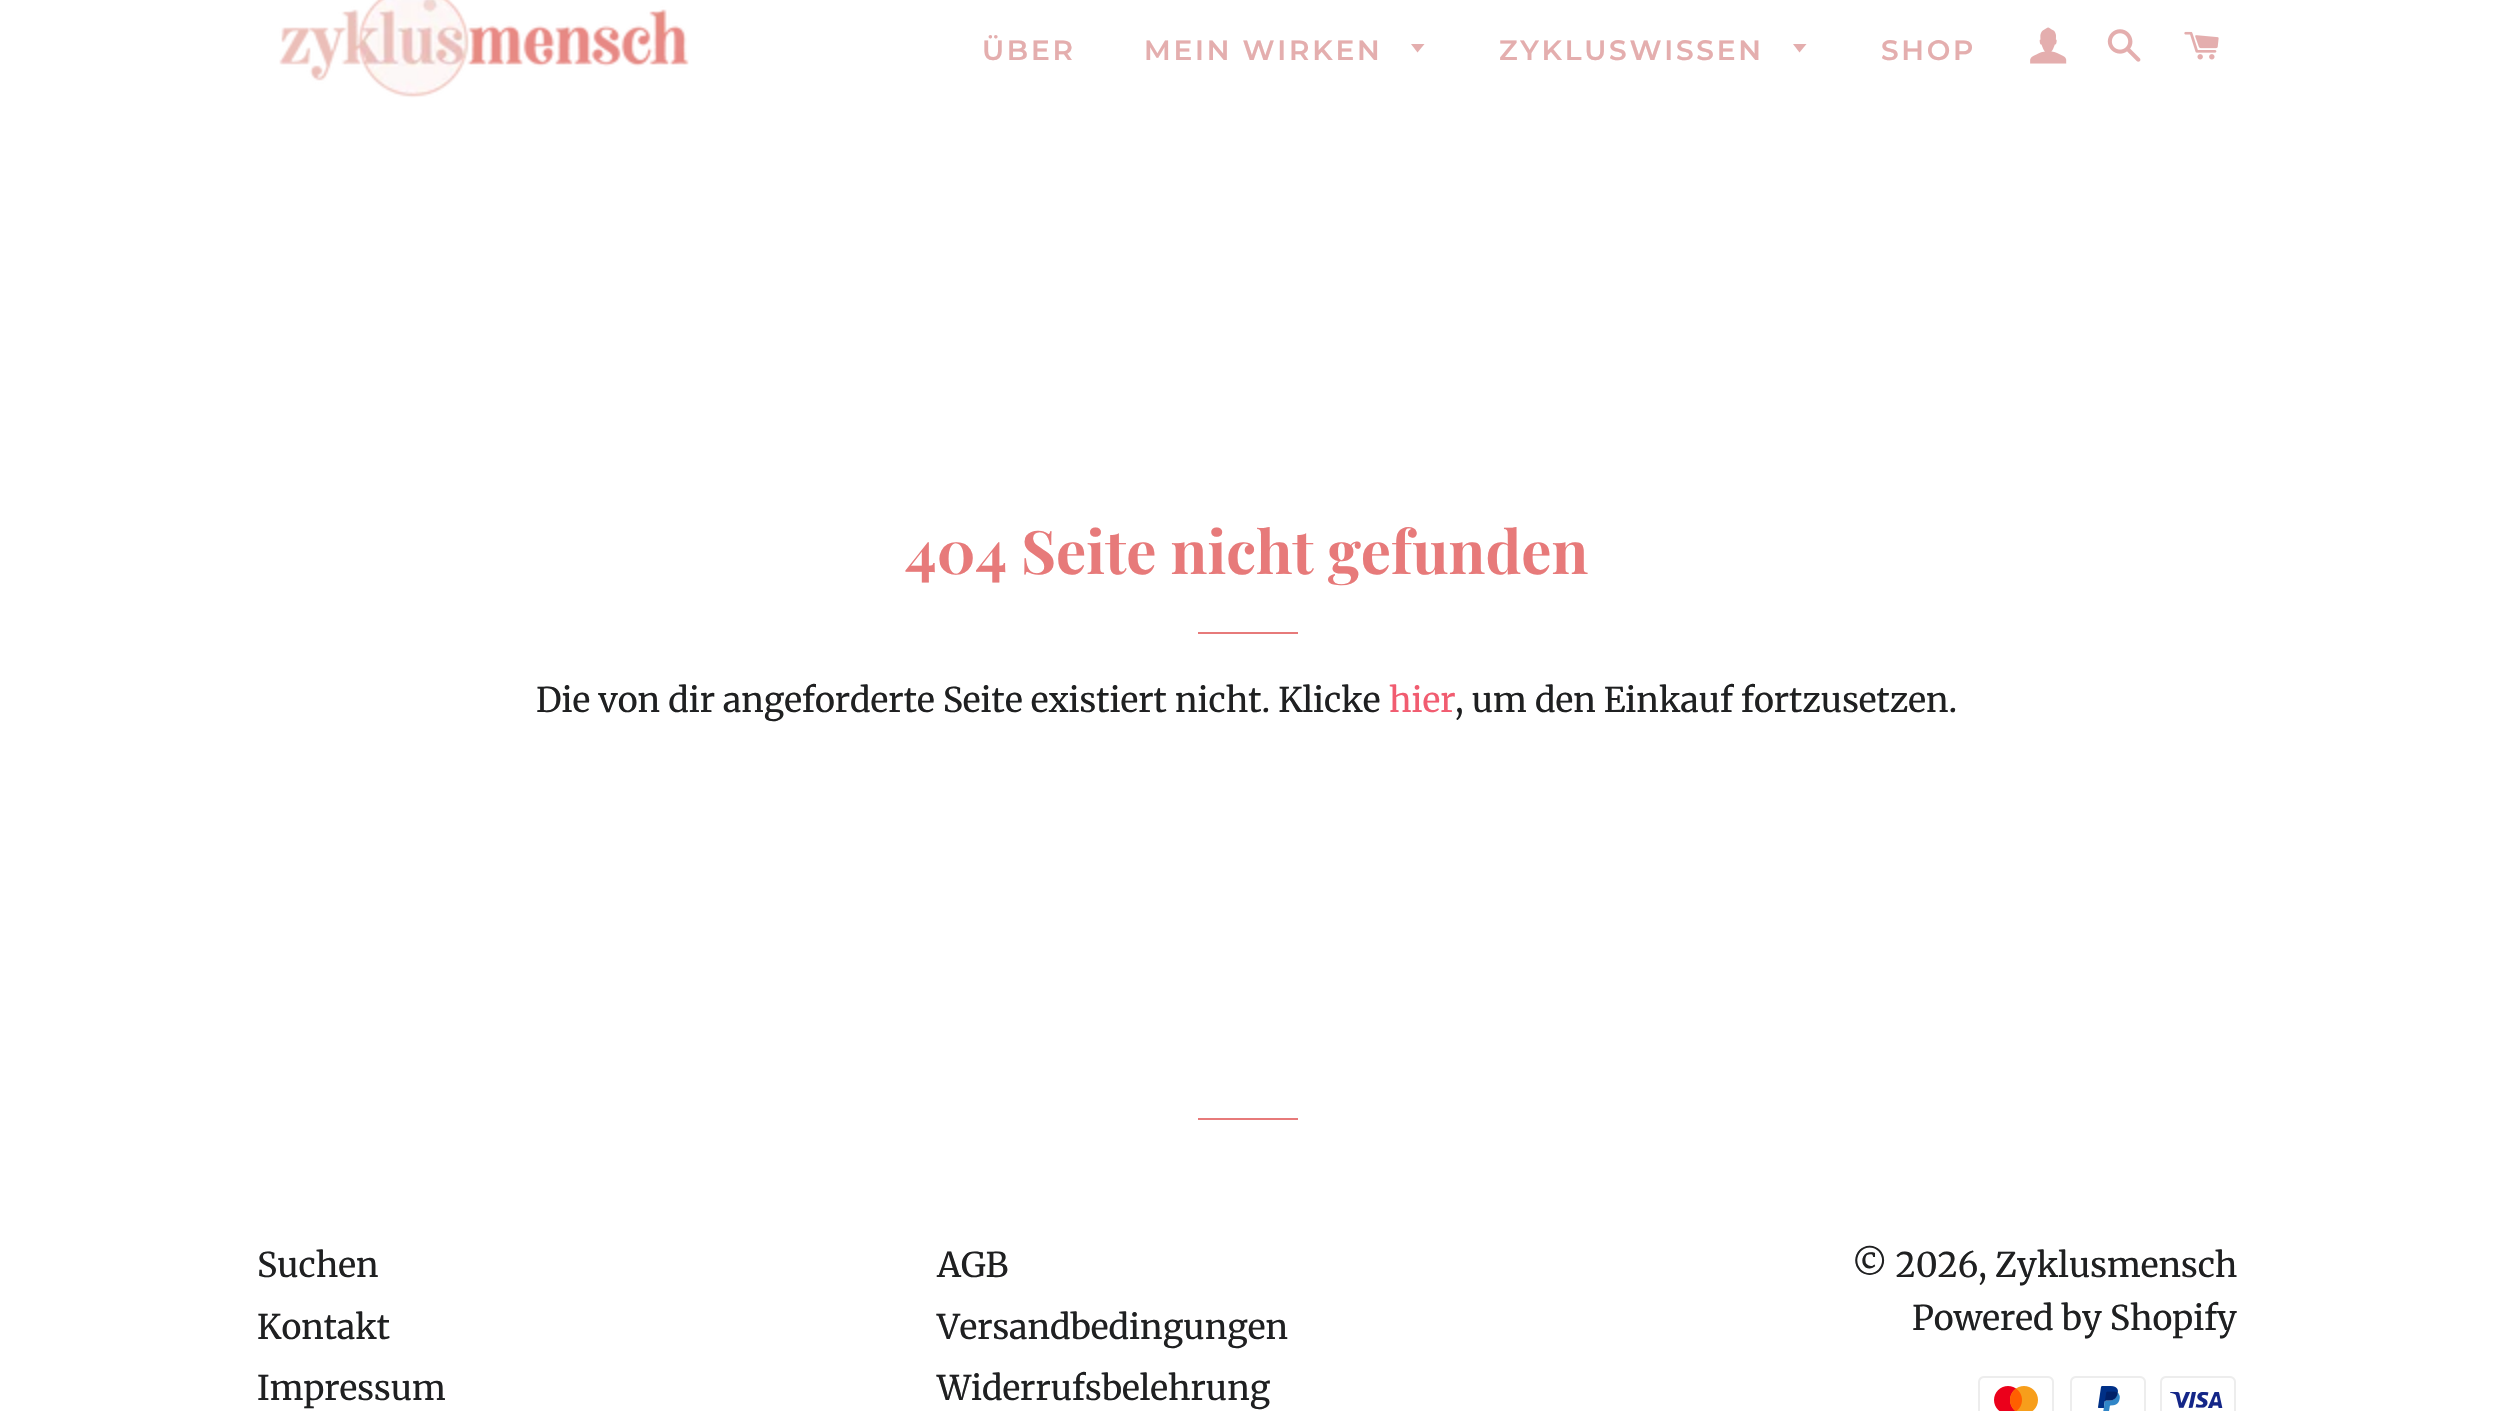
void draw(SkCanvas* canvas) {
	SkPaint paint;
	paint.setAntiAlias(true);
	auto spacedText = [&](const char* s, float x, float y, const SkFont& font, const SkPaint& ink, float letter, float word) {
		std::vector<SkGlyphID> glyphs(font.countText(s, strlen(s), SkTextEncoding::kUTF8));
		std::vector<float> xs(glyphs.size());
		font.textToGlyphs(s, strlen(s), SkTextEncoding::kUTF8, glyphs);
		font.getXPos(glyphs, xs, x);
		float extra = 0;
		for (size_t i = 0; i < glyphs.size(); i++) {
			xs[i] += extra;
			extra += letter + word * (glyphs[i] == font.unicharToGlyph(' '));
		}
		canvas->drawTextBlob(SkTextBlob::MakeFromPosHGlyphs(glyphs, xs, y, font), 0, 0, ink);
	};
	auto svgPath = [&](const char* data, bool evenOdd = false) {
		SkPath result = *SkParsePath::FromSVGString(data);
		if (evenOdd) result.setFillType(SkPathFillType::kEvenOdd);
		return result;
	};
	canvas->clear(0xffffffff);
	canvas->drawImageRect(SkImages::DeferredFromEncodedData(SkData::MakeFromFileName("img1.png")), SkRect::MakeXYWH(279, 0, 410, 98), SkSamplingOptions());
	SkFont f1(fontMgr->matchFamilyStyle("Montserrat", SkFontStyle(600, SkFontStyle::kNormal_Width, SkFontStyle::kUpright_Slant)), 28);
	f1.setSubpixel(true);
	paint.setColor(0xffe4aeae);
	spacedText("ÜBER", 982, 60, f1, paint, 2.75, 0);
	spacedText("MEIN WIRKEN", 1144, 60, f1, paint, 2.75, 0);
	canvas->drawPath(svgPath("M1411 44L1417.5 52.5L1424.5 44Z"), paint);
	spacedText("ZYKLUSWISSEN", 1499, 60, f1, paint, 2.75, 0);
	canvas->drawPath(svgPath("M1793 44L1799.5 52.5L1806.5 44Z"), paint);
	spacedText("SHOP", 1881, 60, f1, paint, 2.75, 0);
	canvas->drawImageRect(SkImages::DeferredFromEncodedData(SkData::MakeFromFileName("img2.png")), SkRect::MakeXYWH(2030, 27, 37, 37), SkSamplingOptions());
	canvas->drawImageRect(SkImages::DeferredFromEncodedData(SkData::MakeFromFileName("img3.png")), SkRect::MakeXYWH(2107, 29, 34, 33), SkSamplingOptions());
	canvas->drawImageRect(SkImages::DeferredFromEncodedData(SkData::MakeFromFileName("img4.png")), SkRect::MakeXYWH(2184, 31, 35, 29), SkSamplingOptions());
	SkFont f2(fontMgr->matchFamilyStyle("Playfair Display", SkFontStyle::Bold()), 60);
	f2.setSubpixel(true);
	paint.setColor(0xffe77a7a);
	canvas->drawString("404 Seite nicht gefunden", 905, 574, f2, paint);
	canvas->drawRect(SkRect::MakeXYWH(1198, 632, 100, 2), paint);
	SkFont f3(fontMgr->matchFamilyStyle("Merriweather", SkFontStyle::Normal()), 34);
	f3.setSubpixel(true);
	paint.setColor(0xff1f2021);
	canvas->drawString("Die von dir angeforderte Seite existiert nicht. Klicke", 536, 712, f3, paint);
	paint.setColor(0xfff15c70);
	canvas->drawString("hier", 1389, 712, f3, paint);
	paint.setColor(0xff1f2021);
	canvas->drawString(", um den Einkauf fortzusetzen.", 1455, 712, f3, paint);
	paint.setColor(0xffe77a7a);
	canvas->drawRect(SkRect::MakeXYWH(1198, 1118, 100, 2), paint);
	paint.setColor(0xff1f2021);
	canvas->drawString("Suchen", 257, 1277, f3, paint);
	canvas->drawString("Kontakt", 257, 1339, f3, paint);
	canvas->drawString("Impressum", 257, 1400, f3, paint);
	canvas->drawString("AGB", 937, 1277, f3, paint);
	canvas->drawString("Versandbedingungen", 937, 1339, f3, paint);
	canvas->drawString("Widerrufsbelehrung", 937, 1400, f3, paint);
	canvas->drawString("© 2026, Zyklusmensch", 1852, 1277, f3, paint);
	canvas->drawString("Powered by Shopify", 1912, 1330, f3, paint);
	canvas->drawImageRect(SkImages::DeferredFromEncodedData(SkData::MakeFromFileName("img5.png")), SkRect::MakeXYWH(1978, 1376, 76, 35), SkSamplingOptions());
	canvas->drawImageRect(SkImages::DeferredFromEncodedData(SkData::MakeFromFileName("img6.png")), SkRect::MakeXYWH(2070, 1376, 76, 35), SkSamplingOptions());
	canvas->drawImageRect(SkImages::DeferredFromEncodedData(SkData::MakeFromFileName("img7.png")), SkRect::MakeXYWH(2160, 1376, 76, 35), SkSamplingOptions());
}
